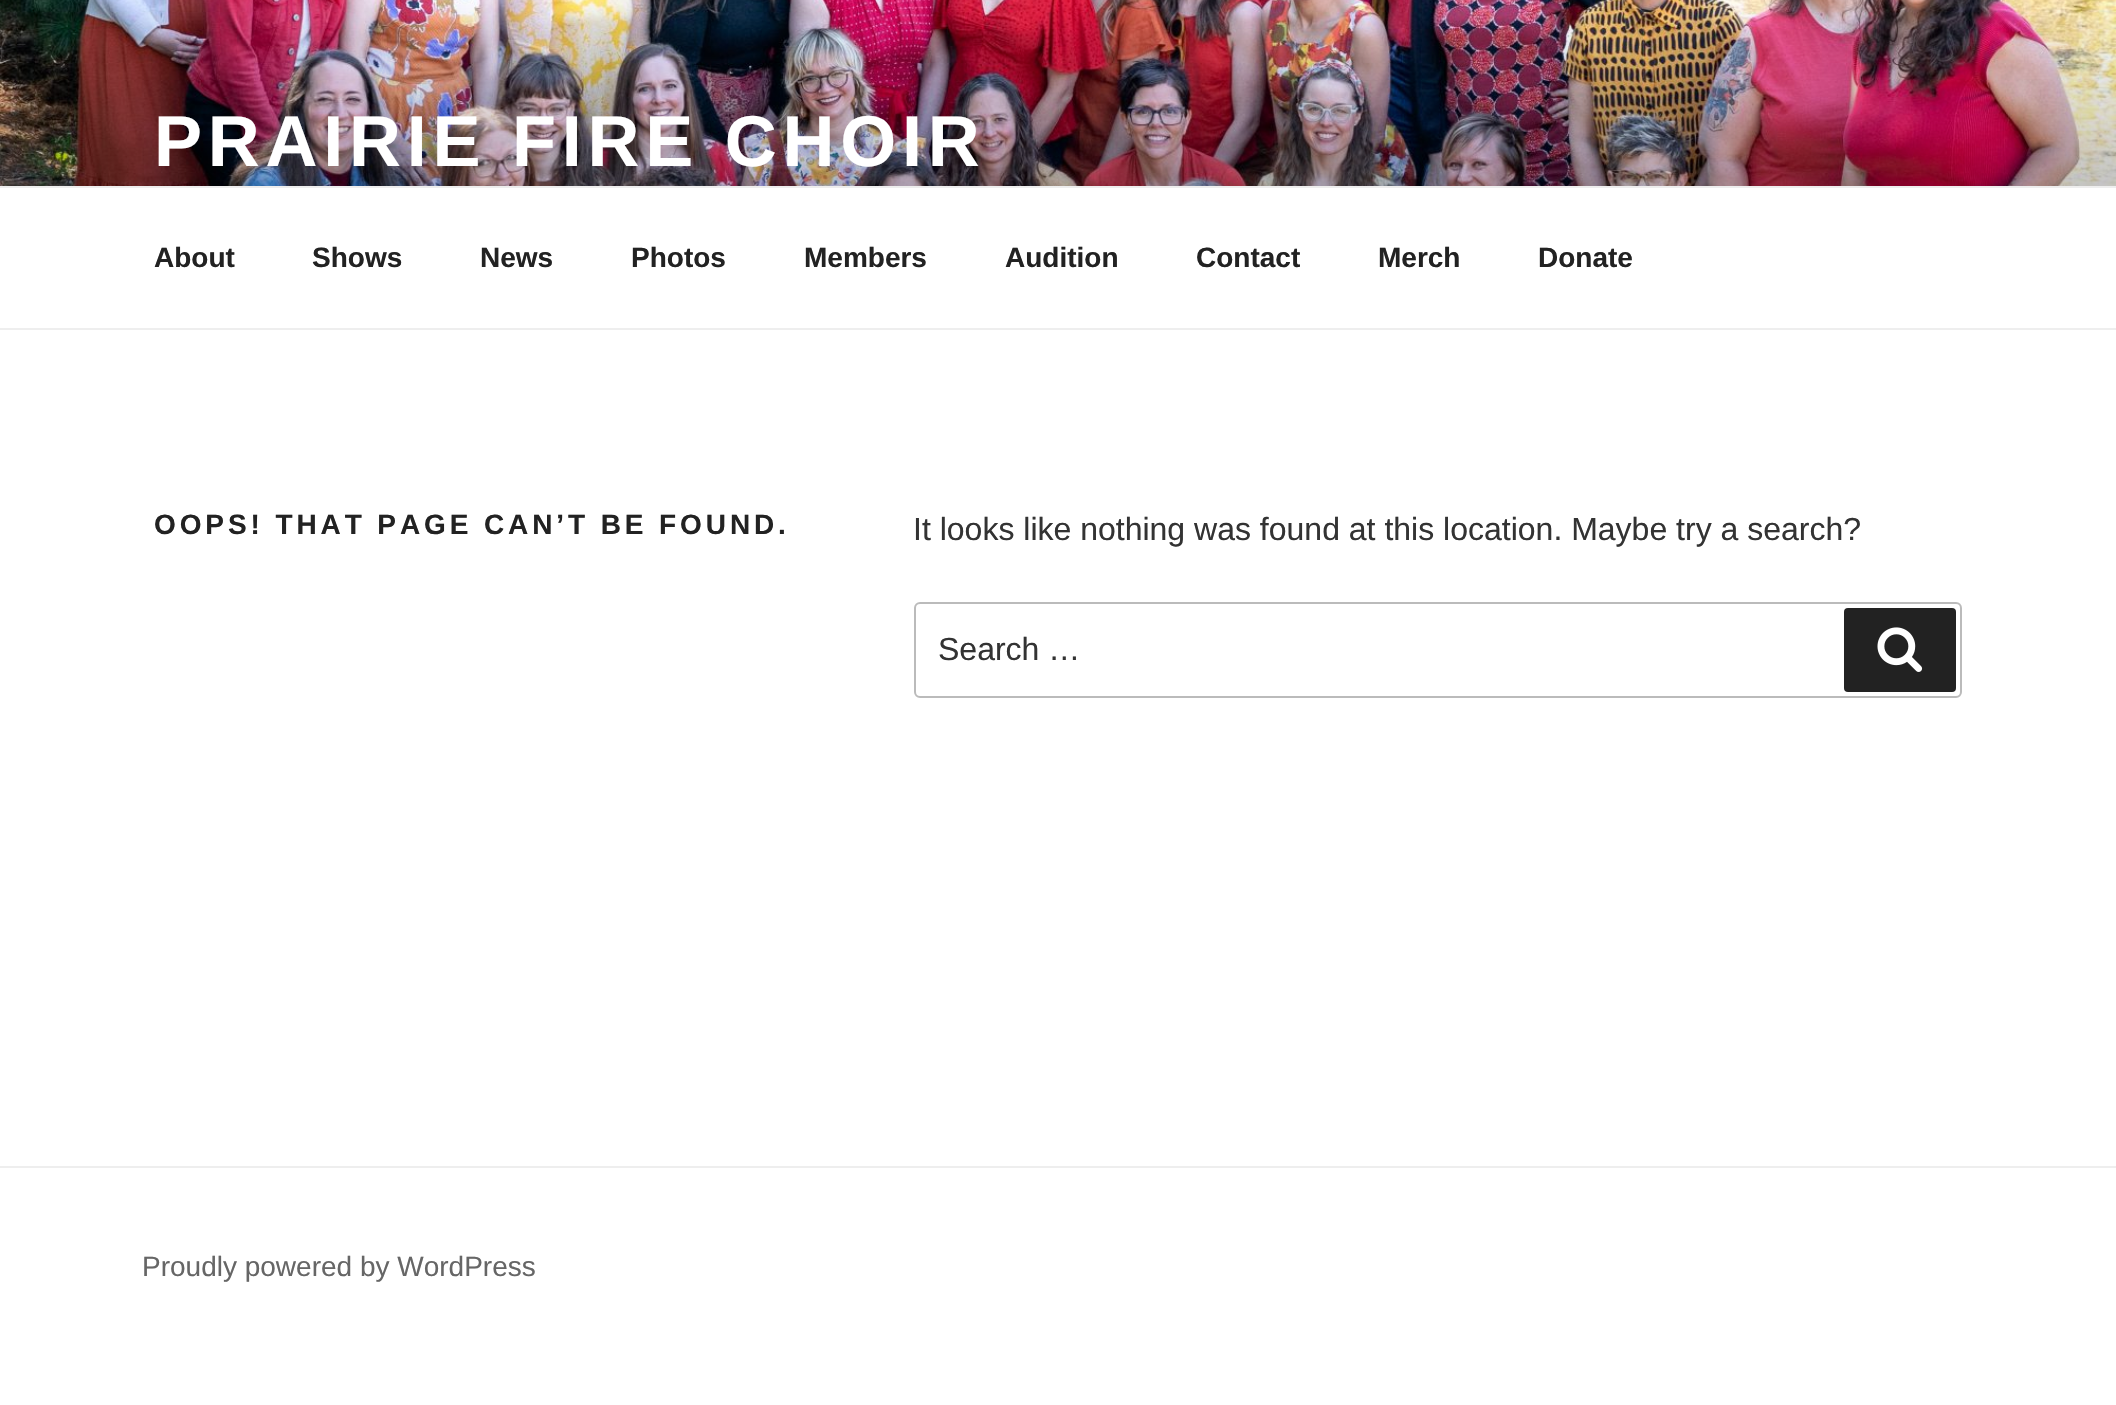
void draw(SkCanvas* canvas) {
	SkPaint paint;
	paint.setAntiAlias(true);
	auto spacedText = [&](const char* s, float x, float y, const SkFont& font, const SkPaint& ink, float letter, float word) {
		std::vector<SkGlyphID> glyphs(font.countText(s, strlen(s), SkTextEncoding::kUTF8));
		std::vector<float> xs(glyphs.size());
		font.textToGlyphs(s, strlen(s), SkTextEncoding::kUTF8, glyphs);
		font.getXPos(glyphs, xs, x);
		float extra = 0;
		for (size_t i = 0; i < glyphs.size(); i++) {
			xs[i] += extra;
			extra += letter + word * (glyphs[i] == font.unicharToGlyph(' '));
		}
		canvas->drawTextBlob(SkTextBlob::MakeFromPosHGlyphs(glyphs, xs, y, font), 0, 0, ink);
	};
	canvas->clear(0xffffffff);
	canvas->drawImageRect(SkImages::DeferredFromEncodedData(SkData::MakeFromFileName("img1.png")), SkRect::MakeXYWH(0, 0, 2116, 186), SkSamplingOptions());
	SkFont f1(fontMgr->matchFamilyStyle("Liberation Sans", SkFontStyle::Bold()), 72);
	f1.setSubpixel(true);
	paint.setColor(0xffffffff);
	spacedText("PRAIRIE FIRE CHOIR", 154, 166, f1, paint, 5.75, 0);
	paint.setColor(0xffeeeeee);
	canvas->drawRect(SkRect::MakeXYWH(0, 186, 2116, 2), paint);
	canvas->drawRect(SkRect::MakeXYWH(0, 328, 2116, 2), paint);
	SkFont f2(fontMgr->matchFamilyStyle("Liberation Sans", SkFontStyle::Bold()), 28);
	f2.setSubpixel(true);
	paint.setColor(0xff222222);
	canvas->drawString("About", 154, 267, f2, paint);
	canvas->drawString("Shows", 312, 267, f2, paint);
	canvas->drawString("News", 480, 267, f2, paint);
	canvas->drawString("Photos", 631, 267, f2, paint);
	canvas->drawString("Members", 804, 267, f2, paint);
	canvas->drawString("Audition", 1005, 267, f2, paint);
	canvas->drawString("Contact", 1196, 267, f2, paint);
	canvas->drawString("Merch", 1378, 267, f2, paint);
	canvas->drawString("Donate", 1538, 267, f2, paint);
	spacedText("OOPS! THAT PAGE CAN’T BE FOUND.", 154, 534, f2, paint, 3.9, 0);
	SkFont f3(fontMgr->matchFamilyStyle("Liberation Sans", SkFontStyle::Normal()), 32);
	f3.setSubpixel(true);
	paint.setColor(0xff333333);
	canvas->drawString("It looks like nothing was found at this location. Maybe try a search?", 913, 540, f3, paint);
	paint.setStroke(true);
	paint.setStrokeWidth(2);
	paint.setColor(0xffbbbbbb);
	canvas->drawRoundRect(SkRect::MakeXYWH(915, 603, 1046, 94), 5, 5, paint);
	paint.setStroke(false);
	paint.setColor(0xff333333);
	canvas->drawString("Search …", 938, 660, f3, paint);
	paint.setColor(0xff222222);
	canvas->drawRoundRect(SkRect::MakeXYWH(1844, 608, 112, 84), 4, 4, paint);
	canvas->drawImageRect(SkImages::DeferredFromEncodedData(SkData::MakeFromFileName("img2.png")), SkRect::MakeXYWH(1877, 627, 46, 45), SkSamplingOptions());
	paint.setColor(0xffeeeeee);
	canvas->drawRect(SkRect::MakeXYWH(0, 1166, 2116, 2), paint);
	SkFont f4(fontMgr->matchFamilyStyle("Liberation Sans", SkFontStyle::Normal()), 28);
	f4.setSubpixel(true);
	paint.setColor(0xff666666);
	canvas->drawString("Proudly powered by WordPress", 142, 1276, f4, paint);
}
